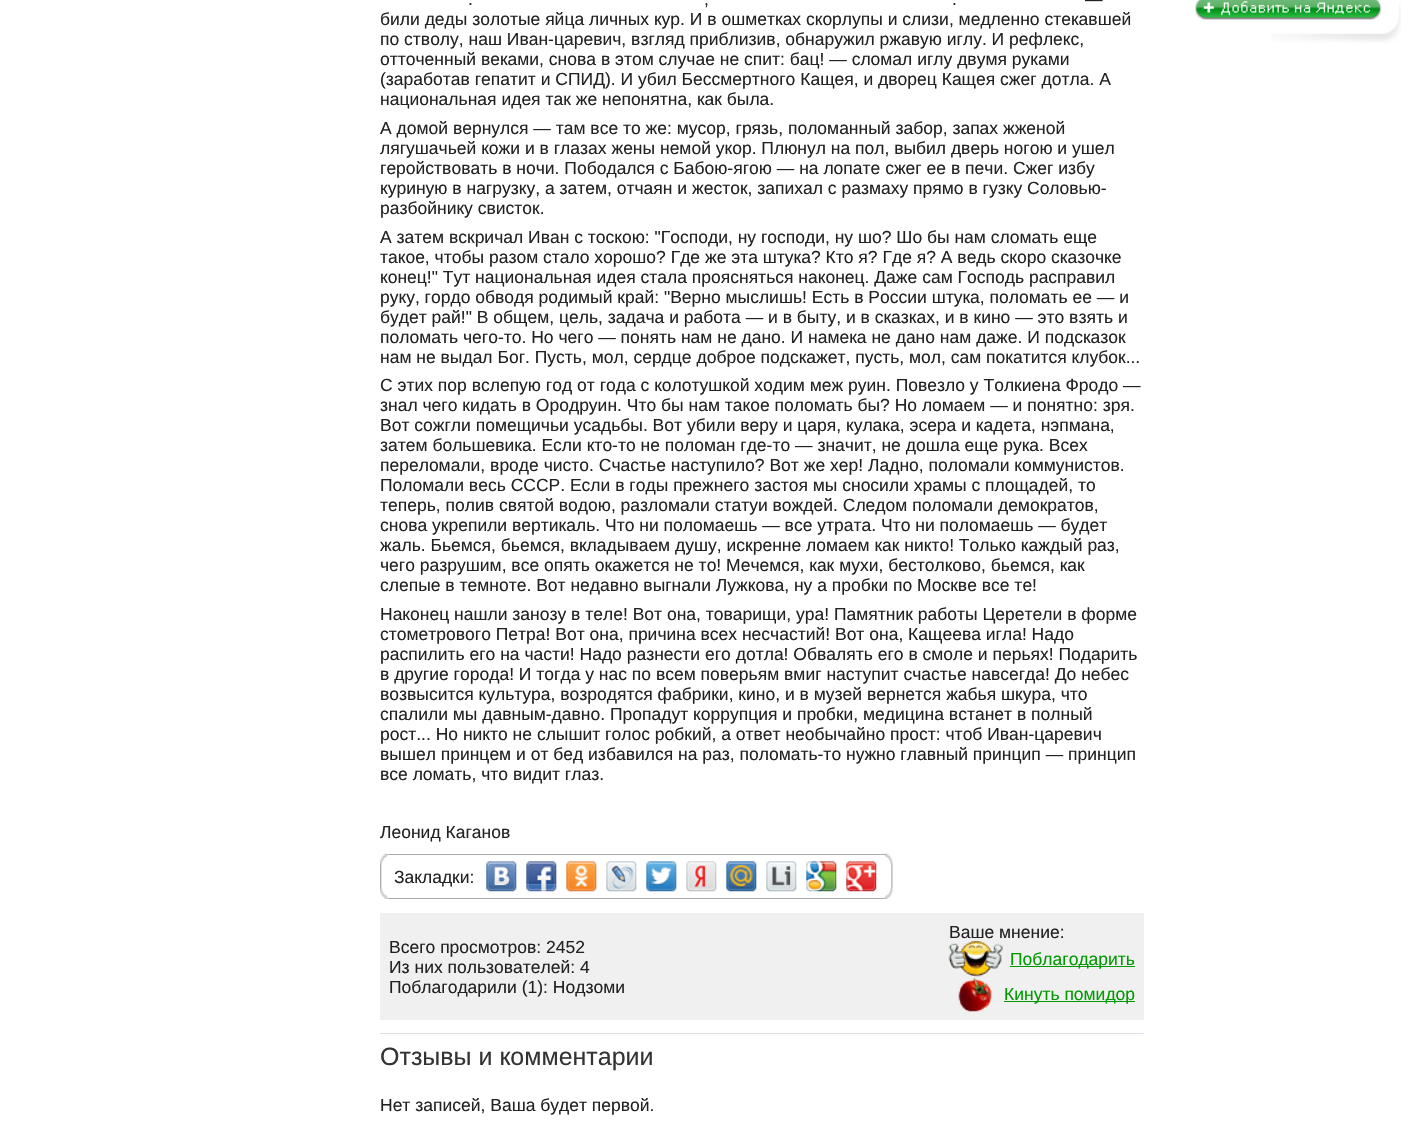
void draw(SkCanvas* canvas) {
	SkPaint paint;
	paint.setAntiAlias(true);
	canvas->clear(0xffffffff);
	SkFont f1(fontMgr->matchFamilyStyle("Liberation Sans", SkFontStyle::Normal()), 17.5);
	f1.setSubpixel(true);
	paint.setColor(0xff222222);
	canvas->drawString("—", 1085, 5, f1, paint);
	canvas->drawString(".", 468, 5, f1, paint);
	canvas->drawString(",", 704, 5, f1, paint);
	canvas->drawString(".", 952, 5, f1, paint);
	canvas->drawString("били деды золотые яйца личных кур. И в ошметках скорлупы и слизи, медленно стекавшей", 380, 25, f1, paint);
	canvas->drawString("по стволу, наш Иван-царевич, взгляд приблизив, обнаружил ржавую иглу. И рефлекс,", 380, 45, f1, paint);
	canvas->drawString("отточенный веками, снова в этом случае не спит: бац! — сломал иглу двумя руками", 380, 65, f1, paint);
	canvas->drawString("(заработав гепатит и СПИД). И убил Бессмертного Кащея, и дворец Кащея сжег дотла. А", 380, 85, f1, paint);
	canvas->drawString("национальная идея так же непонятна, как была.", 380, 105, f1, paint);
	canvas->drawString("А домой вернулся — там все то же: мусор, грязь, поломанный забор, запах жженой", 380, 134, f1, paint);
	canvas->drawString("лягушачьей кожи и в глазах жены немой укор. Плюнул на пол, выбил дверь ногою и ушел", 380, 154, f1, paint);
	canvas->drawString("геройствовать в ночи. Пободался с Бабою-ягою — на лопате сжег ее в печи. Сжег избу", 380, 174, f1, paint);
	canvas->drawString("куриную в нагрузку, а затем, отчаян и жесток, запихал с размаху прямо в гузку Соловью-", 380, 194, f1, paint);
	canvas->drawString("разбойнику свисток.", 380, 214, f1, paint);
	canvas->drawString("А затем вскричал Иван с тоскою: \"Господи, ну господи, ну шо? Шо бы нам сломать еще", 380, 243, f1, paint);
	canvas->drawString("такое, чтобы разом стало хорошо? Где же эта штука? Кто я? Где я? А ведь скоро сказочке", 380, 263, f1, paint);
	canvas->drawString("конец!\" Тут национальная идея стала проясняться наконец. Даже сам Господь расправил", 380, 283, f1, paint);
	canvas->drawString("руку, гордо обводя родимый край: \"Верно мыслишь! Есть в России штука, поломать ее — и", 380, 303, f1, paint);
	canvas->drawString("будет рай!\" В общем, цель, задача и работа — и в быту, и в сказках, и в кино — это взять и", 380, 323, f1, paint);
	canvas->drawString("поломать чего-то. Но чего — понять нам не дано. И намека не дано нам даже. И подсказок", 380, 343, f1, paint);
	canvas->drawString("нам не выдал Бог. Пусть, мол, сердце доброе подскажет, пусть, мол, сам покатится клубок...", 380, 363, f1, paint);
	canvas->drawString("С этих пор вслепую год от года с колотушкой ходим меж руин. Повезло у Толкиена Фродо —", 380, 391, f1, paint);
	canvas->drawString("знал чего кидать в Ородруин. Что бы нам такое поломать бы? Но ломаем — и понятно: зря.", 380, 411, f1, paint);
	canvas->drawString("Вот сожгли помещичьи усадьбы. Вот убили веру и царя, кулака, эсера и кадета, нэпмана,", 380, 431, f1, paint);
	canvas->drawString("затем большевика. Если кто-то не поломан где-то — значит, не дошла еще рука. Всех", 380, 451, f1, paint);
	canvas->drawString("переломали, вроде чисто. Счастье наступило? Вот же хер! Ладно, поломали коммунистов.", 380, 471, f1, paint);
	canvas->drawString("Поломали весь СССР. Если в годы прежнего застоя мы сносили храмы с площадей, то", 380, 491, f1, paint);
	canvas->drawString("теперь, полив святой водою, разломали статуи вождей. Следом поломали демократов,", 380, 511, f1, paint);
	canvas->drawString("снова укрепили вертикаль. Что ни поломаешь — все утрата. Что ни поломаешь — будет", 380, 531, f1, paint);
	canvas->drawString("жаль. Бьемся, бьемся, вкладываем душу, искренне ломаем как никто! Только каждый раз,", 380, 551, f1, paint);
	canvas->drawString("чего разрушим, все опять окажется не то! Мечемся, как мухи, бестолково, бьемся, как", 380, 571, f1, paint);
	canvas->drawString("слепые в темноте. Вот недавно выгнали Лужкова, ну а пробки по Москве все те!", 380, 591, f1, paint);
	canvas->drawString("Наконец нашли занозу в теле! Вот она, товарищи, ура! Памятник работы Церетели в форме", 380, 620, f1, paint);
	canvas->drawString("стометрового Петра! Вот она, причина всех несчастий! Вот она, Кащеева игла! Надо", 380, 640, f1, paint);
	canvas->drawString("распилить его на части! Надо разнести его дотла! Обвалять его в смоле и перьях! Подарить", 380, 660, f1, paint);
	canvas->drawString("в другие города! И тогда у нас по всем поверьям вмиг наступит счастье навсегда! До небес", 380, 680, f1, paint);
	canvas->drawString("возвысится культура, возродятся фабрики, кино, и в музей вернется жабья шкура, что", 380, 700, f1, paint);
	canvas->drawString("спалили мы давным-давно. Пропадут коррупция и пробки, медицина встанет в полный", 380, 720, f1, paint);
	canvas->drawString("рост... Но никто не слышит голос робкий, а ответ необычайно прост: чтоб Иван-царевич", 380, 740, f1, paint);
	canvas->drawString("вышел принцем и от бед избавился на раз, поломать-то нужно главный принцип — принцип", 380, 760, f1, paint);
	canvas->drawString("все ломать, что видит глаз.", 380, 780, f1, paint);
	canvas->drawString("Леонид Каганов", 380, 838, f1, paint);
	canvas->drawImageRect(SkImages::DeferredFromEncodedData(SkData::MakeFromFileName("img1.png")), SkRect::MakeXYWH(380, 853, 8, 46), SkSamplingOptions());
	paint.setColor(0xffaaaaaa);
	canvas->drawRect(SkRect::MakeXYWH(388, 854, 497, 1), paint);
	canvas->drawRect(SkRect::MakeXYWH(388, 898, 497, 1), paint);
	paint.setColor(0xff222222);
	canvas->drawString("Закладки:", 394, 883, f1, paint);
	canvas->drawImageRect(SkImages::DeferredFromEncodedData(SkData::MakeFromFileName("img2.png")), SkRect::MakeXYWH(486, 861, 391, 31), SkSamplingOptions());
	canvas->drawImageRect(SkImages::DeferredFromEncodedData(SkData::MakeFromFileName("img3.png")), SkRect::MakeXYWH(885, 853, 8, 46), SkSamplingOptions());
	paint.setColor(0xfff0f0f0);
	canvas->drawRect(SkRect::MakeXYWH(380, 913, 764, 107), paint);
	paint.setColor(0xff222222);
	canvas->drawString("Всего просмотров: 2452", 389, 953, f1, paint);
	canvas->drawString("Из них пользователей: 4", 389, 973, f1, paint);
	canvas->drawString("Поблагодарили (1): Нодзоми", 389, 993, f1, paint);
	canvas->drawString("Ваше мнение:", 949, 938, f1, paint);
	canvas->drawImageRect(SkImages::DeferredFromEncodedData(SkData::MakeFromFileName("img4.png")), SkRect::MakeXYWH(948, 941, 55, 36), SkSamplingOptions());
	paint.setColor(0xff009900);
	canvas->drawRect(SkRect::MakeXYWH(1010, 966, 125, 1), paint);
	canvas->drawString("Поблагодарить", 1010, 965, f1, paint);
	canvas->drawImageRect(SkImages::DeferredFromEncodedData(SkData::MakeFromFileName("img5.png")), SkRect::MakeXYWH(958, 976, 34, 36), SkSamplingOptions());
	canvas->drawRect(SkRect::MakeXYWH(1004, 1001, 131, 1), paint);
	canvas->drawString("Кинуть помидор", 1004, 1000, f1, paint);
	paint.setColor(0xffe0e0f0);
	canvas->drawRect(SkRect::MakeXYWH(380, 1033, 764, 1), paint);
	SkFont f2(fontMgr->matchFamilyStyle("Liberation Sans", SkFontStyle::Normal()), 25);
	f2.setSubpixel(true);
	paint.setColor(0xff333333);
	canvas->drawString("Отзывы и комментарии", 380, 1065, f2, paint);
	paint.setColor(0xff222222);
	canvas->drawString("Нет записей, Ваша будет первой.", 380, 1111, f1, paint);
	canvas->drawImageRect(SkImages::DeferredFromEncodedData(SkData::MakeFromFileName("img6.png")), SkRect::MakeXYWH(1195, 0, 187, 20), SkSamplingOptions());
	canvas->drawImageRect(SkImages::DeferredFromEncodedData(SkData::MakeFromFileName("img7.png")), SkRect::MakeXYWH(1384, 2, 17, 32), SkSamplingOptions());
	canvas->drawImageRect(SkImages::DeferredFromEncodedData(SkData::MakeFromFileName("img8.png")), SkRect::MakeXYWH(1271, 33, 127, 10), SkSamplingOptions());
}
